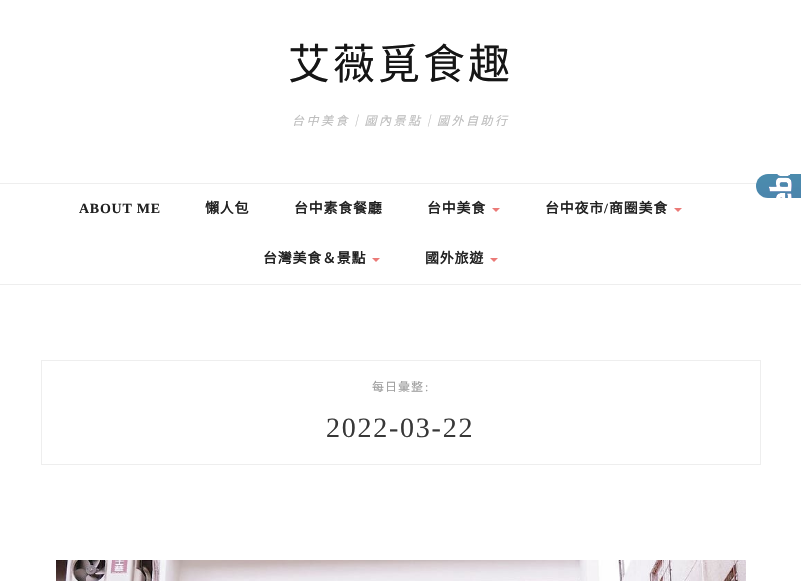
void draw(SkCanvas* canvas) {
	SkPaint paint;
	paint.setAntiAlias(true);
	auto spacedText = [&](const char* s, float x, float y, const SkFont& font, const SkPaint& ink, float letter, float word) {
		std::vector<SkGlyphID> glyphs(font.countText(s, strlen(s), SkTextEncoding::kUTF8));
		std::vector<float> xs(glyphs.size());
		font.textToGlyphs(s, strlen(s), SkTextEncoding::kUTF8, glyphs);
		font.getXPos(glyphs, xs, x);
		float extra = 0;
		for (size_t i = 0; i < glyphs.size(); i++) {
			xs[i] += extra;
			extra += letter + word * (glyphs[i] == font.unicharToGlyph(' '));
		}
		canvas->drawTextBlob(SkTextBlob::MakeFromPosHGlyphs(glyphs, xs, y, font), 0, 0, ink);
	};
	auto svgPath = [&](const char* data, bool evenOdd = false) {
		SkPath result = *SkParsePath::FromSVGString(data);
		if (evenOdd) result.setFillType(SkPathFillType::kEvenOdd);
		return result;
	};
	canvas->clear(0xffffffff);
	SkFont f1(fontMgr->matchFamilyStyle("Noto Sans CJK TC", SkFontStyle::Normal()), 42);
	f1.setSubpixel(true);
	paint.setColor(0xff161616);
	spacedText("艾薇覓食趣", 288, 79, f1, paint, 3, 0);
	SkFont f2(fontMgr->matchFamilyStyle("Noto Sans CJK TC", SkFontStyle::Italic()), 12);
	f2.setSubpixel(true);
	paint.setColor(0xffbdbdbd);
	spacedText("台中美食｜國內景點｜國外自助行", 292, 125, f2, paint, 2.5, 0);
	paint.setColor(0xffeeeeee);
	canvas->drawRect(SkRect::MakeXYWH(0, 183, 757, 1), paint);
	canvas->drawImageRect(SkImages::DeferredFromEncodedData(SkData::MakeFromFileName("img1.png")), SkRect::MakeXYWH(756, 174, 45, 24), SkSamplingOptions());
	canvas->drawRect(SkRect::MakeXYWH(0, 284, 801, 1), paint);
	SkFont f3(fontMgr->matchFamilyStyle("Liberation Serif", SkFontStyle::Bold()), 14);
	f3.setSubpixel(true);
	paint.setColor(0xff212121);
	spacedText("ABOUT ME", 79, 213, f3, paint, 0.75, 0);
	SkFont f4(fontMgr->matchFamilyStyle("Noto Sans CJK TC", SkFontStyle::Bold()), 14);
	f4.setSubpixel(true);
	spacedText("懶人包", 205, 213, f4, paint, 0.75, 0);
	spacedText("台中素食餐廳", 294, 213, f4, paint, 0.75, 0);
	spacedText("台中美食", 427, 213, f4, paint, 0.75, 0);
	paint.setColor(0xffeb7a77);
	canvas->drawPath(svgPath("M492 208H500L496 212Z"), paint);
	paint.setColor(0xff212121);
	spacedText("台中夜市", 545, 213, f4, paint, 0.75, 0);
	spacedText("/", 604, 213, f3, paint, 0.75, 0);
	spacedText("商圈美食", 609, 213, f4, paint, 0.75, 0);
	paint.setColor(0xffeb7a77);
	canvas->drawPath(svgPath("M674 208H682L678 212Z"), paint);
	paint.setColor(0xff212121);
	spacedText("台灣美食＆景點", 263, 263, f4, paint, 0.75, 0);
	paint.setColor(0xffeb7a77);
	canvas->drawPath(svgPath("M372 258H380L376 262Z"), paint);
	paint.setColor(0xff212121);
	spacedText("國外旅遊", 425, 263, f4, paint, 0.75, 0);
	paint.setColor(0xffeb7a77);
	canvas->drawPath(svgPath("M490 258H498L494 262Z"), paint);
	paint.setStroke(true);
	paint.setStrokeWidth(1);
	paint.setColor(0xffeeeeee);
	canvas->drawRect(SkRect::MakeXYWH(41.5, 360.5, 719, 104), paint);
	SkFont f5(fontMgr->matchFamilyStyle("Noto Sans CJK TC", SkFontStyle::Normal()), 12);
	f5.setSubpixel(true);
	paint.setStroke(false);
	paint.setColor(0xff9e9e9e);
	spacedText("每日彙整", 372, 391, f5, paint, 1, 0);
	SkFont f6(fontMgr->matchFamilyStyle("Liberation Serif", SkFontStyle::Normal()), 12);
	f6.setSubpixel(true);
	spacedText(":", 425, 391, f6, paint, 1, 0);
	SkFont f7(fontMgr->matchFamilyStyle("Liberation Serif", SkFontStyle::Normal()), 28);
	f7.setSubpixel(true);
	paint.setColor(0xff383838);
	spacedText("2022-03-22", 326, 437, f7, paint, 1.75, 0);
	canvas->drawImageRect(SkImages::DeferredFromEncodedData(SkData::MakeFromFileName("img2.png")), SkRect::MakeXYWH(56, 560, 690, 21), SkSamplingOptions());
}
